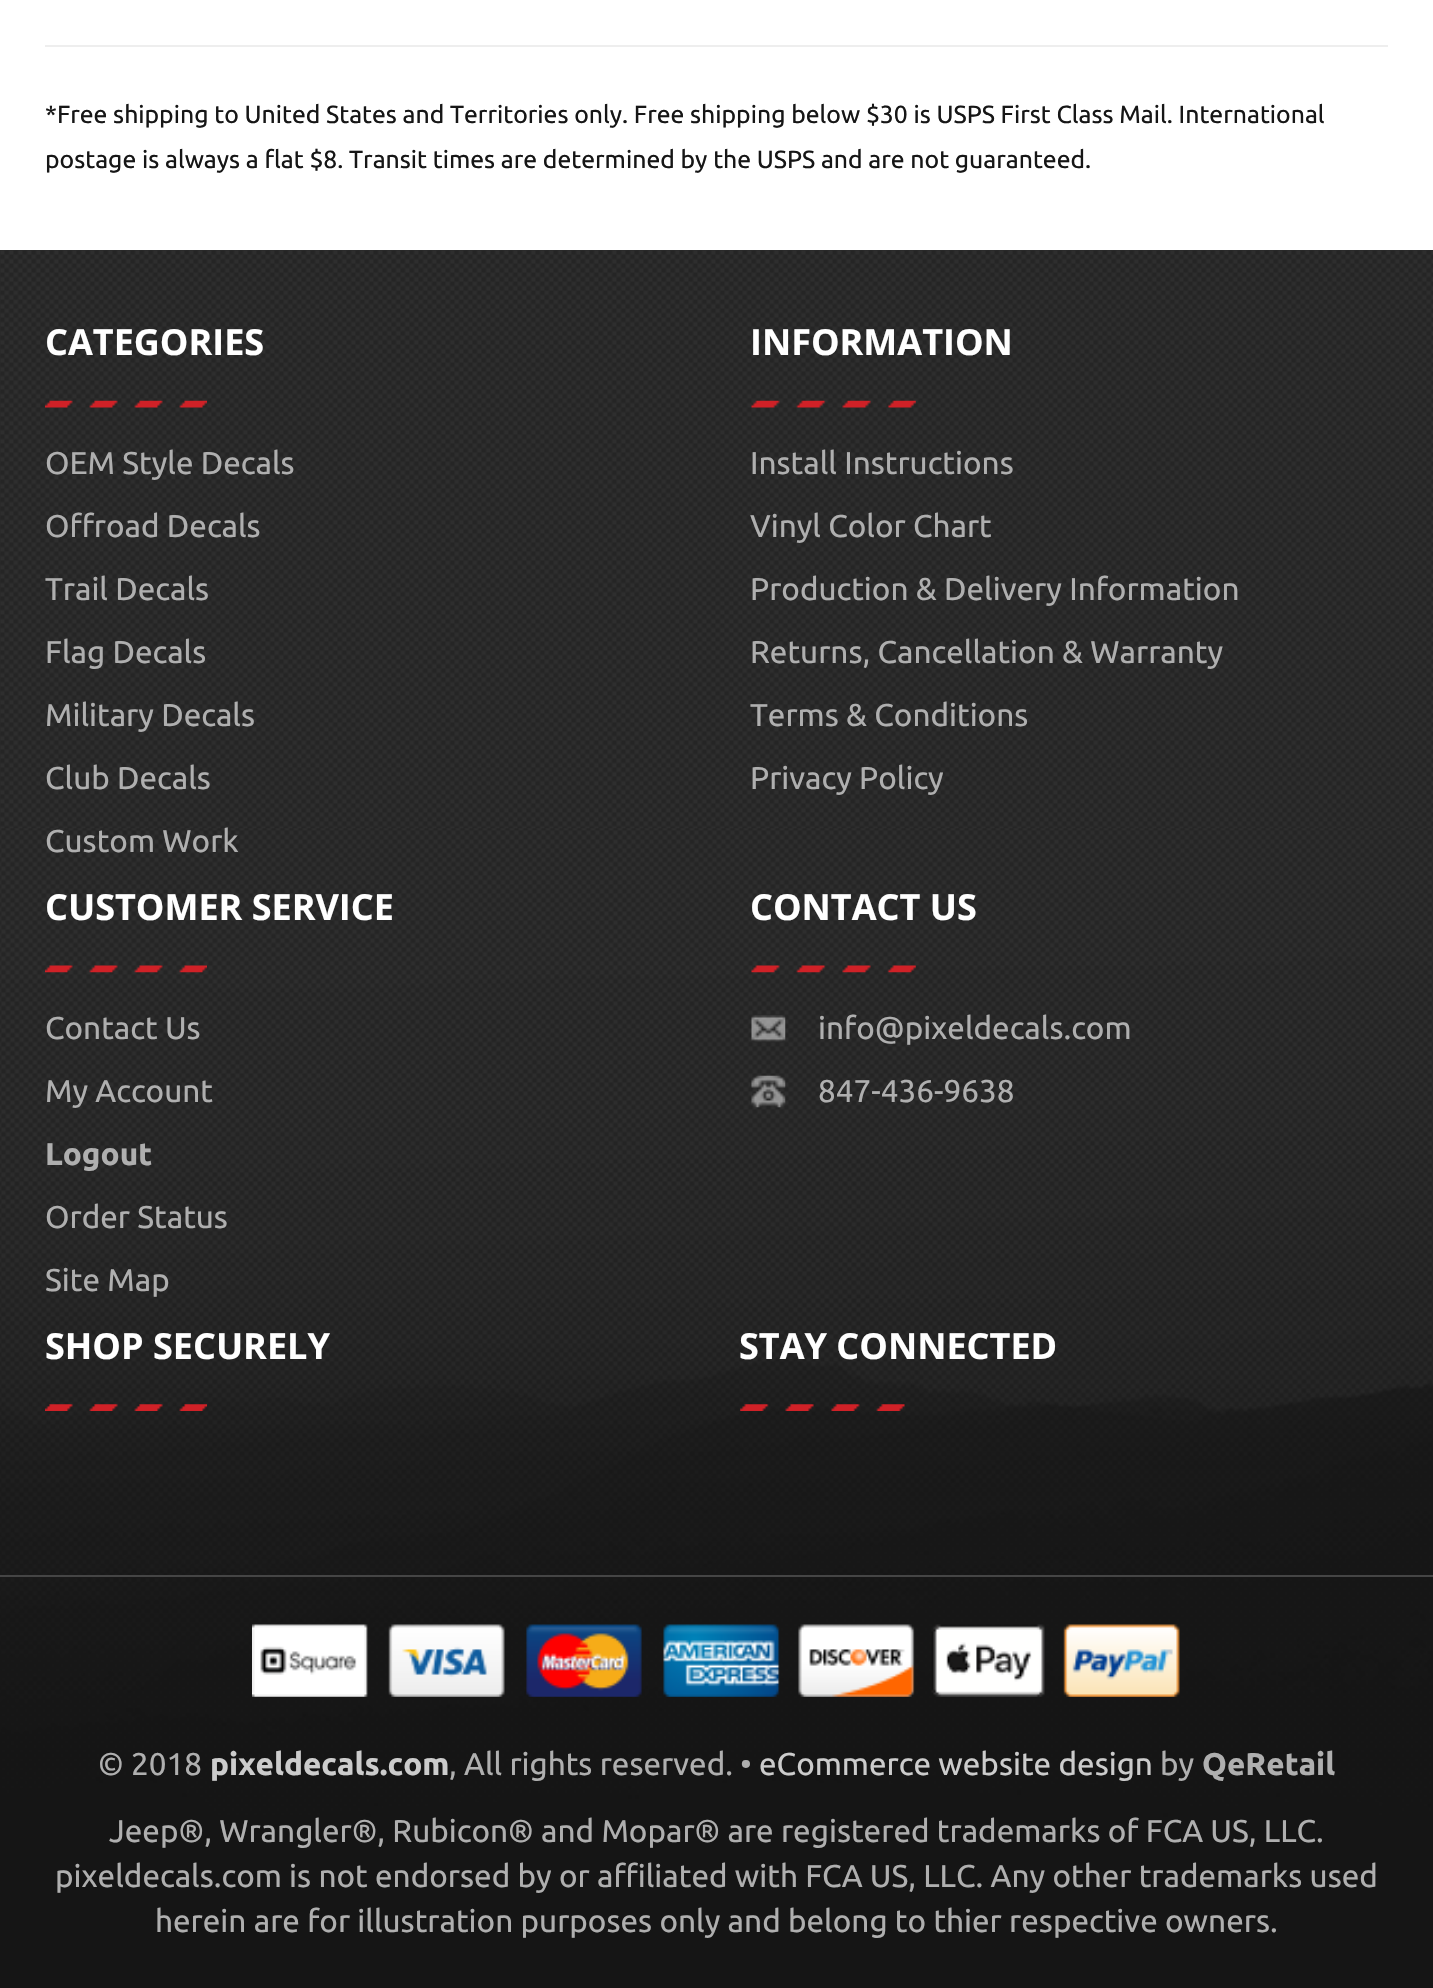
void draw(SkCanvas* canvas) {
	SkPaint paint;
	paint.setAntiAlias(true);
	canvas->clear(0xffffffff);
	paint.setColor(0xffeeeeee);
	canvas->drawRect(SkRect::MakeXYWH(45, 45, 1343, 2), paint);
	SkFont f1(fontMgr->matchFamilyStyle("Ubuntu", SkFontStyle::Normal()), 24.75);
	f1.setSubpixel(true);
	paint.setColor(0xff161616);
	canvas->drawString("*Free shipping to United States and Territories only. Free shipping below $30 is USPS First Class Mail. International", 45, 123, f1, paint);
	canvas->drawString("postage is always a flat $8. Transit times are determined by the USPS and are not guaranteed.", 45, 168, f1, paint);
	canvas->drawImageRect(SkImages::DeferredFromEncodedData(SkData::MakeFromFileName("img1.png")), SkRect::MakeXYWH(0, 250, 1433, 579), SkSamplingOptions());
	canvas->drawImageRect(SkImages::DeferredFromEncodedData(SkData::MakeFromFileName("img2.png")), SkRect::MakeXYWH(0, 828, 1433, 1160), SkSamplingOptions());
	canvas->drawImageRect(SkImages::DeferredFromEncodedData(SkData::MakeFromFileName("img3.png")), SkRect::MakeXYWH(45, 400, 162, 8), SkSamplingOptions());
	SkFont f2(fontMgr->matchFamilyStyle("Open Sans", SkFontStyle::Bold()), 36);
	f2.setSubpixel(true);
	paint.setColor(0xffffffff);
	canvas->drawString("CATEGORIES", 45, 355, f2, paint);
	SkFont f3(fontMgr->matchFamilyStyle("Ubuntu", SkFontStyle::Normal()), 31.5);
	f3.setSubpixel(true);
	paint.setColor(0xffafafaf);
	canvas->drawString("OEM Style Decals", 45, 474, f3, paint);
	canvas->drawString("Offroad Decals", 45, 537, f3, paint);
	canvas->drawString("Trail Decals", 45, 600, f3, paint);
	canvas->drawString("Flag Decals", 45, 663, f3, paint);
	canvas->drawString("Military Decals", 45, 726, f3, paint);
	canvas->drawString("Club Decals", 45, 789, f3, paint);
	canvas->drawString("Custom Work", 45, 852, f3, paint);
	canvas->drawImageRect(SkImages::DeferredFromEncodedData(SkData::MakeFromFileName("img4.png")), SkRect::MakeXYWH(751, 400, 165, 8), SkSamplingOptions());
	paint.setColor(0xffffffff);
	canvas->drawString("INFORMATION", 750, 355, f2, paint);
	paint.setColor(0xffafafaf);
	canvas->drawString("Install Instructions", 750, 474, f3, paint);
	canvas->drawString("Vinyl Color Chart", 750, 537, f3, paint);
	canvas->drawString("Production & Delivery Information", 750, 600, f3, paint);
	canvas->drawString("Returns, Cancellation & Warranty", 750, 663, f3, paint);
	canvas->drawString("Terms & Conditions", 750, 726, f3, paint);
	canvas->drawString("Privacy Policy", 750, 789, f3, paint);
	canvas->drawImageRect(SkImages::DeferredFromEncodedData(SkData::MakeFromFileName("img5.png")), SkRect::MakeXYWH(45, 965, 162, 8), SkSamplingOptions());
	paint.setColor(0xffffffff);
	canvas->drawString("CUSTOMER SERVICE", 45, 920, f2, paint);
	paint.setColor(0xffafafaf);
	canvas->drawString("Contact Us", 45, 1039, f3, paint);
	canvas->drawString("My Account", 45, 1102, f3, paint);
	SkFont f4(fontMgr->matchFamilyStyle("Ubuntu", SkFontStyle::Bold()), 31.5);
	f4.setSubpixel(true);
	canvas->drawString("Logout", 45, 1165, f4, paint);
	canvas->drawString("Order Status", 45, 1228, f3, paint);
	canvas->drawString("Site Map", 45, 1291, f3, paint);
	canvas->drawImageRect(SkImages::DeferredFromEncodedData(SkData::MakeFromFileName("img6.png")), SkRect::MakeXYWH(751, 965, 165, 8), SkSamplingOptions());
	paint.setColor(0xffffffff);
	canvas->drawString("CONTACT US", 750, 920, f2, paint);
	canvas->drawImageRect(SkImages::DeferredFromEncodedData(SkData::MakeFromFileName("img7.png")), SkRect::MakeXYWH(751, 1015, 35, 27), SkSamplingOptions());
	paint.setColor(0xffafafaf);
	canvas->drawString("info@pixeldecals.com", 818, 1039, f3, paint);
	canvas->drawImageRect(SkImages::DeferredFromEncodedData(SkData::MakeFromFileName("img8.png")), SkRect::MakeXYWH(751, 1075, 35, 33), SkSamplingOptions());
	canvas->drawString("847-436-9638", 818, 1102, f3, paint);
	canvas->drawImageRect(SkImages::DeferredFromEncodedData(SkData::MakeFromFileName("img9.png")), SkRect::MakeXYWH(45, 1404, 162, 7), SkSamplingOptions());
	paint.setColor(0xffffffff);
	canvas->drawString("SHOP SECURELY", 45, 1359, f2, paint);
	canvas->drawImageRect(SkImages::DeferredFromEncodedData(SkData::MakeFromFileName("img10.png")), SkRect::MakeXYWH(740, 1404, 165, 7), SkSamplingOptions());
	canvas->drawString("STAY CONNECTED", 739, 1359, f2, paint);
	paint.setColor(0xff454545);
	canvas->drawRect(SkRect::MakeXYWH(0, 1575, 1433, 2), paint);
	canvas->drawImageRect(SkImages::DeferredFromEncodedData(SkData::MakeFromFileName("img11.png")), SkRect::MakeXYWH(252, 1624, 928, 73), SkSamplingOptions());
	paint.setColor(0xffafafaf);
	canvas->drawString("© 2018", 98, 1775, f3, paint);
	paint.setColor(0xffcccccc);
	canvas->drawString("pixeldecals.com", 210, 1775, f4, paint);
	paint.setColor(0xffafafaf);
	canvas->drawString(", All rights reserved. •", 449, 1775, f3, paint);
	paint.setColor(0xffcccccc);
	canvas->drawString("eCommerce website design", 759, 1775, f3, paint);
	paint.setColor(0xffafafaf);
	canvas->drawString("by", 1160, 1775, f3, paint);
	canvas->drawString("QeRetail", 1202, 1775, f4, paint);
	canvas->drawString("Jeep®, Wrangler®, Rubicon® and Mopar® are registered trademarks of FCA US, LLC.", 109, 1842, f3, paint);
	canvas->drawString("pixeldecals.com is not endorsed by or affiliated with FCA US, LLC. Any other trademarks used", 55, 1887, f3, paint);
	canvas->drawString("herein are for illustration purposes only and belong to thier respective owners.", 155, 1932, f3, paint);
}
